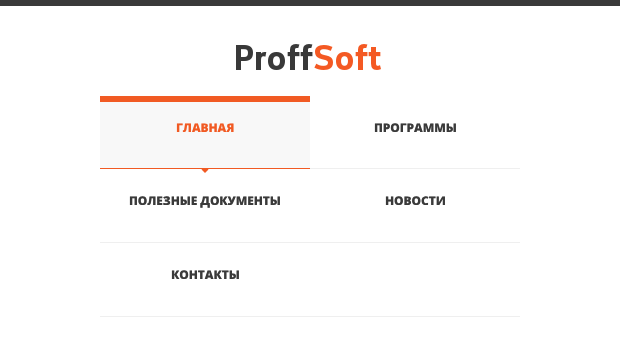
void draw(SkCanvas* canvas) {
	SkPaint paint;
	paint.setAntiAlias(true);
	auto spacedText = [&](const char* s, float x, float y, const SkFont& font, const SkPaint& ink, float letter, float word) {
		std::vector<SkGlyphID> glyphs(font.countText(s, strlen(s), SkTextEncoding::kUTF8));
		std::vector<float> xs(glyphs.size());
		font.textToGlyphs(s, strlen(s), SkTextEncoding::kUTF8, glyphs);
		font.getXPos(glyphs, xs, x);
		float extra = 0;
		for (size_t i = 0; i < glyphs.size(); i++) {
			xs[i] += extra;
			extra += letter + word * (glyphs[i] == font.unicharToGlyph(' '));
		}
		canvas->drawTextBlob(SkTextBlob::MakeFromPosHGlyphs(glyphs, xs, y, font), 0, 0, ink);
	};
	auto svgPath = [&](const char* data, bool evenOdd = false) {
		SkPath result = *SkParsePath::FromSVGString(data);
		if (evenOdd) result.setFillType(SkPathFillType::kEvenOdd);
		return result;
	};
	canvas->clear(0xffffffff);
	paint.setColor(0xff3a3a3a);
	canvas->drawRect(SkRect::MakeXYWH(0, 0, 620, 6), paint);
	paint.setColor(0xffefefef);
	canvas->drawRect(SkRect::MakeXYWH(100, 316, 420, 1), paint);
	canvas->drawImageRect(SkImages::DeferredFromEncodedData(SkData::MakeFromFileName("img1.png")), SkRect::MakeXYWH(236, 44, 145, 26), SkSamplingOptions());
	paint.setColor(0xfff15a23);
	canvas->drawPath(svgPath("M205 166L208.5 169.5L205 173L201.5 169.5Z"), paint);
	paint.setColor(0xfff8f8f8);
	canvas->drawRect(SkRect::MakeXYWH(100, 102, 210, 66), paint);
	paint.setColor(0xfff15a23);
	canvas->drawRect(SkRect::MakeXYWH(100, 96, 210, 6), paint);
	canvas->drawRect(SkRect::MakeXYWH(100, 168, 210, 1), paint);
	SkFont f1(fontMgr->matchFamilyStyle("Open Sans", SkFontStyle(800, SkFontStyle::kNormal_Width, SkFontStyle::kUpright_Slant)), 12);
	f1.setSubpixel(true);
	spacedText("ГЛАВНАЯ", 176, 132, f1, paint, -0.1, 0);
	paint.setColor(0xffefefef);
	canvas->drawRect(SkRect::MakeXYWH(310, 168, 210, 1), paint);
	paint.setColor(0xff3a3a3a);
	spacedText("ПРОГРАММЫ", 374, 132, f1, paint, -0.1, 0);
	paint.setColor(0xffefefef);
	canvas->drawRect(SkRect::MakeXYWH(100, 242, 420, 1), paint);
	paint.setColor(0xff3a3a3a);
	spacedText("ПОЛЕЗНЫЕ ДОКУМЕНТЫ", 129, 205, f1, paint, -0.1, 0);
	spacedText("НОВОСТИ", 385, 205, f1, paint, -0.1, 0);
	spacedText("КОНТАКТЫ", 171, 279, f1, paint, -0.1, 0);
}
